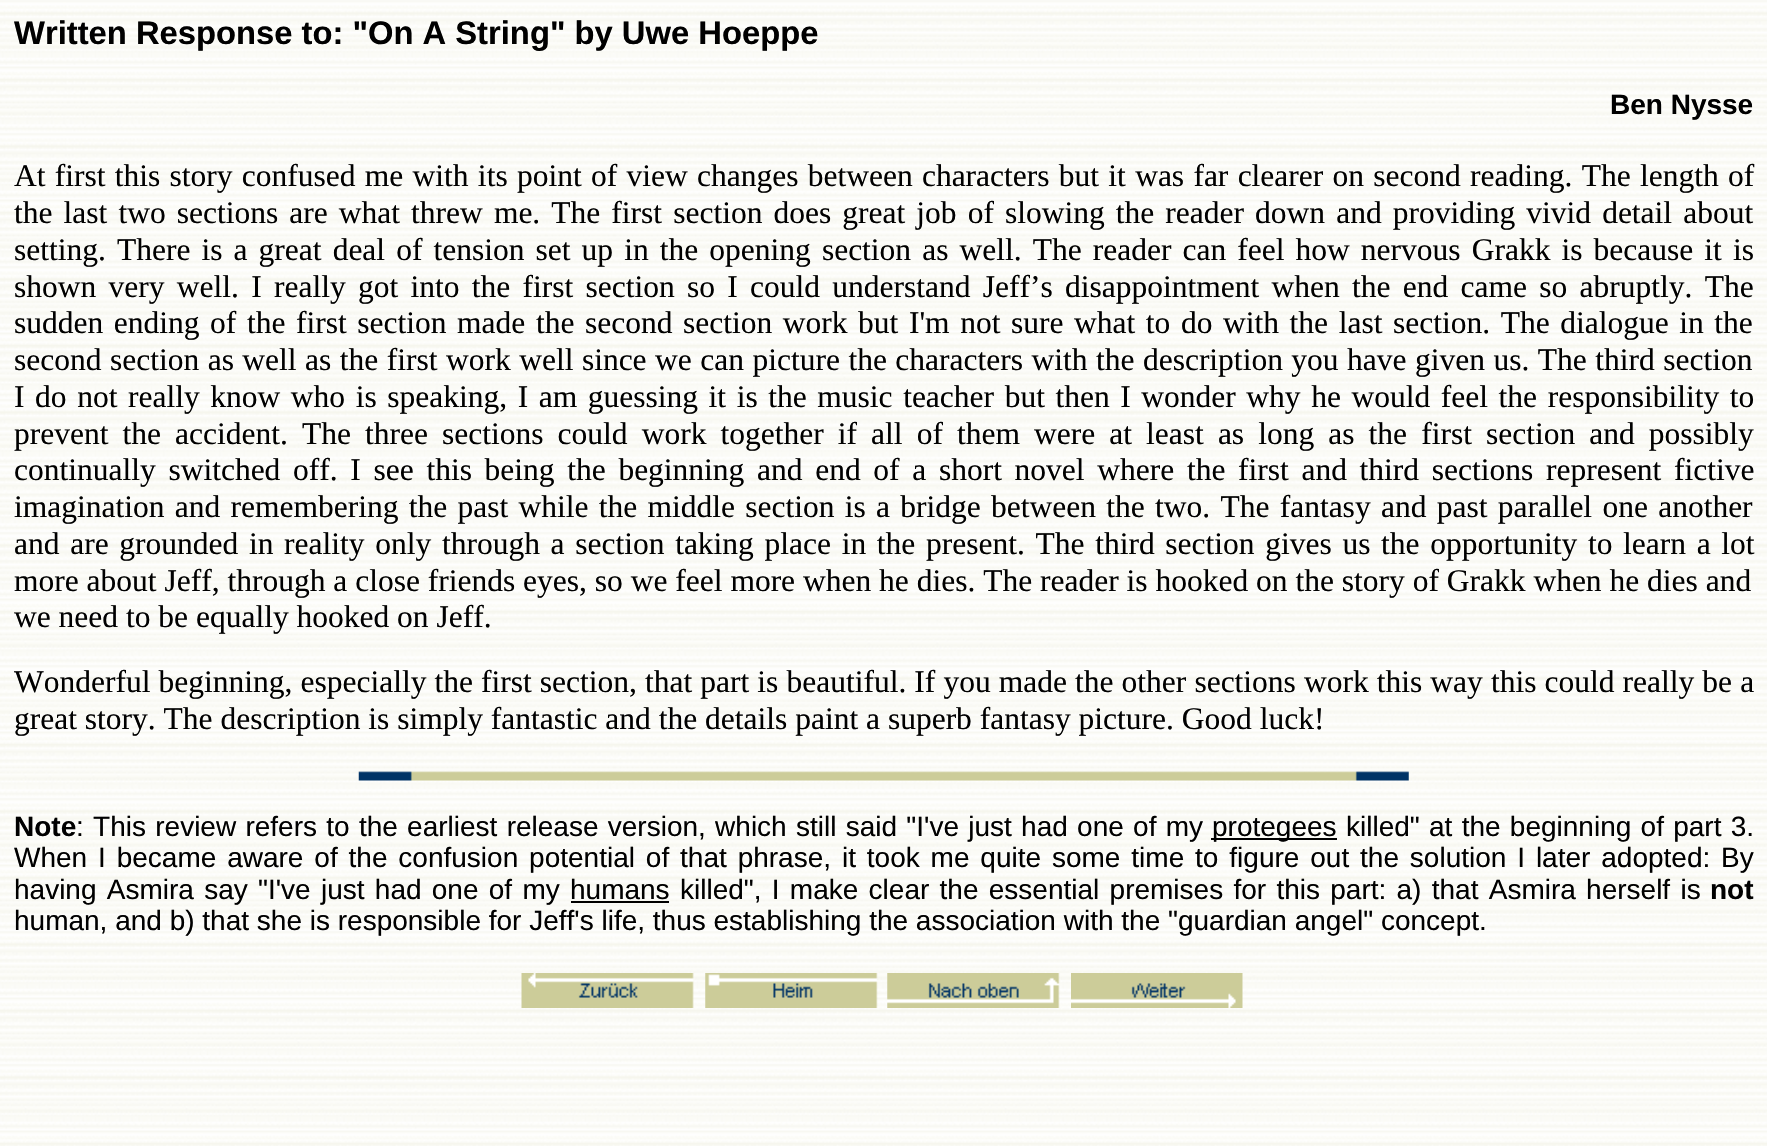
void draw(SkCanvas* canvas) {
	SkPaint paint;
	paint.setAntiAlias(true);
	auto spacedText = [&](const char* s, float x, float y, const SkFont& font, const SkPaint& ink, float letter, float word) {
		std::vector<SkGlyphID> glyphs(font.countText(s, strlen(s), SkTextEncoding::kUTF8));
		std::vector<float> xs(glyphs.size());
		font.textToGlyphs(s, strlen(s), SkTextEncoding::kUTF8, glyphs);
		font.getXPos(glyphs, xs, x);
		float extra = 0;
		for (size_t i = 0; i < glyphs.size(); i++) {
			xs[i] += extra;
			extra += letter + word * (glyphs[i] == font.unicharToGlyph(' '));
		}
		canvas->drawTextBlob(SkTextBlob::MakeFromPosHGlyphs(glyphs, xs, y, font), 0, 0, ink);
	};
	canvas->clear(0xffffffff);
	canvas->drawImageRect(SkImages::DeferredFromEncodedData(SkData::MakeFromFileName("img1.png")), SkRect::MakeXYWH(0, 0, 1767, 1146), SkSamplingOptions());
	SkFont f1(fontMgr->matchFamilyStyle("Liberation Sans", SkFontStyle::Bold()), 32.75);
	f1.setSubpixel(true);
	paint.setColor(0xff000000);
	canvas->drawString("Written Response to: \"On A String\" by Uwe Hoeppe", 14, 44, f1, paint);
	SkFont f2(fontMgr->matchFamilyStyle("Liberation Sans", SkFontStyle::Bold()), 28);
	f2.setSubpixel(true);
	canvas->drawString("Ben Nysse", 1610, 114, f2, paint);
	SkFont f3(fontMgr->matchFamilyStyle("Liberation Serif", SkFontStyle::Normal()), 31.5);
	f3.setSubpixel(true);
	spacedText("At first this story confused me with its point of view changes between characters but it was far clearer on second reading. The length of", 14, 186, f3, paint, 0, 1.4);
	spacedText("the last two sections are what threw me. The first section does great job of slowing the reader down and providing vivid detail about", 14, 223, f3, paint, 0, 3.2);
	spacedText("setting. There is a great deal of tension set up in the opening section as well. The reader can feel how nervous Grakk is because it is", 14, 260, f3, paint, 0, 3.2);
	spacedText("shown very well. I really got into the first section so I could understand Jeff’s disappointment when the end came so abruptly. The", 14, 297, f3, paint, 0, 4.4);
	spacedText("sudden ending of the first section made the second section work but I'm not sure what to do with the last section. The dialogue in the", 14, 333, f3, paint, 0, 2.7);
	spacedText("second section as well as the first work well since we can picture the characters with the description you have given us. The third section", 14, 370, f3, paint, 0, 0.6);
	spacedText("I do not really know who is speaking, I am guessing it is the music teacher but then I wonder why he would feel the responsibility to", 14, 407, f3, paint, 0, 2.7);
	spacedText("prevent the accident. The three sections could work together if all of them were at least as long as the first section and possibly", 14, 444, f3, paint, 0, 6.2);
	spacedText("continually switched off. I see this being the beginning and end of a short novel where the first and third sections represent fictive", 14, 480, f3, paint, 0, 4.8);
	spacedText("imagination and remembering the past while the middle section is a bridge between the two. The fantasy and past parallel one another", 14, 517, f3, paint, 0, 2.4);
	spacedText("and are grounded in reality only through a section taking place in the present. The third section gives us the opportunity to learn a lot", 14, 554, f3, paint, 0, 2.8);
	canvas->drawString("more about Jeff, through a close friends eyes, so we feel more when he dies. The reader is hooked on the story of Grakk when he dies and", 14, 591, f3, paint);
	canvas->drawString("we need to be equally hooked on Jeff.", 14, 627, f3, paint);
	spacedText("Wonderful beginning, especially the first section, that part is beautiful. If you made the other sections work this way this could really be a", 14, 692, f3, paint, 0, 0.2);
	canvas->drawString("great story. The description is simply fantastic and the details paint a superb fantasy picture. Good luck!", 14, 729, f3, paint);
	canvas->drawImageRect(SkImages::DeferredFromEncodedData(SkData::MakeFromFileName("img2.png")), SkRect::MakeXYWH(358, 771, 1051, 10), SkSamplingOptions());
	canvas->drawString("Note", 14, 836, f2, paint);
	SkFont f4(fontMgr->matchFamilyStyle("Liberation Sans", SkFontStyle::Normal()), 28);
	f4.setSubpixel(true);
	spacedText(": This review refers to the earliest release version, which still said \"I've just had one of my", 76, 836, f4, paint, 0, 1.5);
	canvas->drawRect(SkRect::MakeXYWH(1211, 838, 126, 2), paint);
	canvas->drawString("protegees", 1212, 836, f4, paint);
	spacedText("killed\" at the beginning of part 3.", 1346, 836, f4, paint, 0, 1.5);
	spacedText("When I became aware of the confusion potential of that phrase, it took me quite some time to figure out the solution I later adopted: By", 14, 867, f4, paint, 0, 3.1);
	spacedText("having Asmira say \"I've just had one of my", 14, 899, f4, paint, 0, 2.5);
	canvas->drawString("humans", 570, 899, f4, paint);
	canvas->drawRect(SkRect::MakeXYWH(571, 901, 98, 2), paint);
	spacedText("killed\", I make clear the essential premises for this part: a) that Asmira herself is", 680, 899, f4, paint, 0, 2.5);
	canvas->drawString("not", 1710, 899, f2, paint);
	canvas->drawString("human, and b) that she is responsible for Jeff's life, thus establishing the association with the \"guardian angel\" concept.", 14, 930, f4, paint);
	canvas->drawImageRect(SkImages::DeferredFromEncodedData(SkData::MakeFromFileName("img3.png")), SkRect::MakeXYWH(521, 973, 173, 35), SkSamplingOptions());
	canvas->drawImageRect(SkImages::DeferredFromEncodedData(SkData::MakeFromFileName("img4.png")), SkRect::MakeXYWH(705, 973, 173, 35), SkSamplingOptions());
	canvas->drawImageRect(SkImages::DeferredFromEncodedData(SkData::MakeFromFileName("img5.png")), SkRect::MakeXYWH(887, 973, 173, 35), SkSamplingOptions());
	canvas->drawImageRect(SkImages::DeferredFromEncodedData(SkData::MakeFromFileName("img6.png")), SkRect::MakeXYWH(1071, 973, 172, 35), SkSamplingOptions());
}
